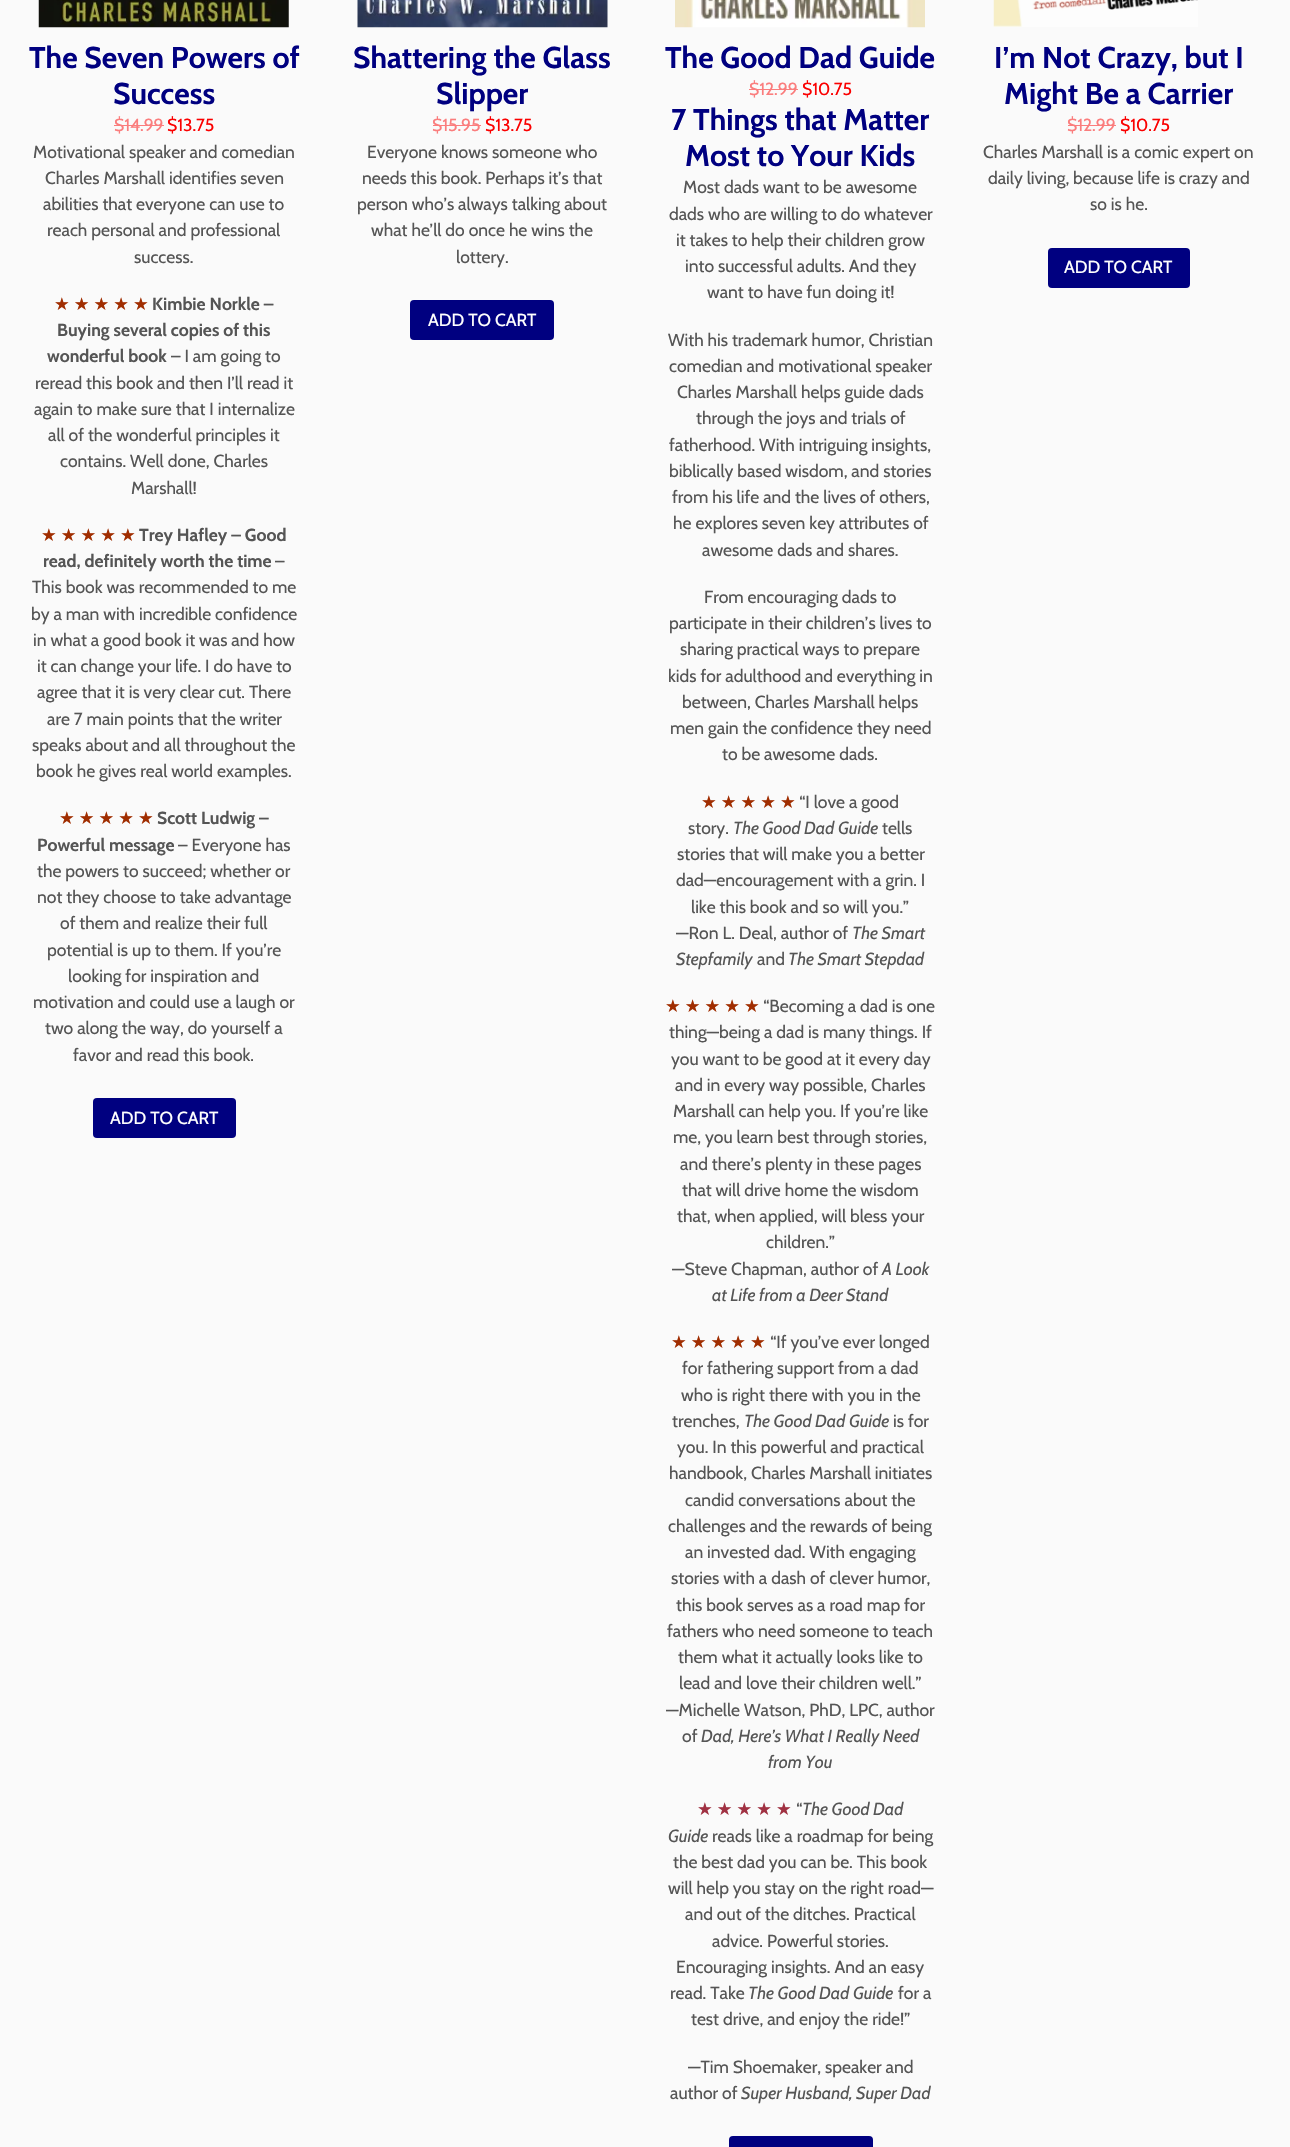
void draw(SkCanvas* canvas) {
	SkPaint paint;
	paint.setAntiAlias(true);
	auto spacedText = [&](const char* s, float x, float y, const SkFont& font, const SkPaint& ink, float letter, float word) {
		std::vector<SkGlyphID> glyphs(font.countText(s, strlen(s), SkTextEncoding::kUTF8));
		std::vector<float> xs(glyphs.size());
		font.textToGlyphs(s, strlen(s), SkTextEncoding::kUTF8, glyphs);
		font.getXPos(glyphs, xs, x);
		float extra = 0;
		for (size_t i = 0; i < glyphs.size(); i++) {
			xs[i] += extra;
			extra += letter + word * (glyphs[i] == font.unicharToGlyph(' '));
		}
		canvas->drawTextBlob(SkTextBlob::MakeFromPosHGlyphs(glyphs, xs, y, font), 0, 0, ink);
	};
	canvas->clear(0xfffafafa);
	canvas->drawImageRect(SkImages::DeferredFromEncodedData(SkData::MakeFromFileName("img1.png")), SkRect::MakeXYWH(38, 0, 251, 28), SkSamplingOptions());
	SkFont f1(fontMgr->matchFamilyStyle("Cabin", SkFontStyle::Bold()), 30);
	f1.setSubpixel(true);
	paint.setColor(0xff000080);
	canvas->drawString("The Seven Powers of", 29, 68, f1, paint);
	canvas->drawString("Success", 113, 104, f1, paint);
	SkFont f2(fontMgr->matchFamilyStyle("Cabin", SkFontStyle::Normal()), 17.5);
	f2.setSubpixel(true);
	paint.setColor(0xfffa7d7d);
	canvas->drawString("$14.99", 114, 131, f2, paint);
	canvas->drawRect(SkRect::MakeXYWH(114, 125, 50, 1), paint);
	paint.setColor(0xfffa0000);
	canvas->drawString("$13.75", 167, 131, f2, paint);
	paint.setColor(0xff555555);
	canvas->drawString("Motivational speaker and comedian", 33, 158, f2, paint);
	canvas->drawString("Charles Marshall identifies seven", 45, 184, f2, paint);
	canvas->drawString("abilities that everyone can use to", 43, 210, f2, paint);
	canvas->drawString("reach personal and professional", 47, 236, f2, paint);
	canvas->drawString("success.", 134, 263, f2, paint);
	SkFont f3(fontMgr->matchFamilyStyle("DejaVu Sans", SkFontStyle::Normal()), 17.5);
	f3.setSubpixel(true);
	paint.setColor(0xffa02d00);
	spacedText("★ ★ ★ ★ ★", 54, 310, f3, paint, 0, -1.5);
	SkFont f4(fontMgr->matchFamilyStyle("Cabin", SkFontStyle::Bold()), 17.5);
	f4.setSubpixel(true);
	paint.setColor(0xff555555);
	canvas->drawString("Kimbie Norkle –", 152, 310, f4, paint);
	canvas->drawString("Buying several copies of this", 57, 336, f4, paint);
	canvas->drawString("wonderful book", 47, 362, f4, paint);
	canvas->drawString("– I am going to", 171, 362, f2, paint);
	canvas->drawString("reread this book and then I’ll read it", 35, 389, f2, paint);
	canvas->drawString("again to make sure that I internalize", 34, 415, f2, paint);
	canvas->drawString("all of the wonderful principles it", 48, 441, f2, paint);
	canvas->drawString("contains. Well done, Charles", 60, 467, f2, paint);
	canvas->drawString("Marshall!", 131, 494, f2, paint);
	paint.setColor(0xffa02d00);
	spacedText("★ ★ ★ ★ ★", 41, 541, f3, paint, 0, -1.5);
	paint.setColor(0xff555555);
	canvas->drawString("Trey Hafley – Good", 139, 541, f4, paint);
	canvas->drawString("read, definitely worth the time", 43, 567, f4, paint);
	canvas->drawString("–", 275, 567, f2, paint);
	canvas->drawString("This book was recommended to me", 32, 593, f2, paint);
	canvas->drawString("by a man with incredible confidence", 31, 620, f2, paint);
	canvas->drawString("in what a good book it was and how", 33, 646, f2, paint);
	canvas->drawString("it can change your life. I do have to", 37, 672, f2, paint);
	canvas->drawString("agree that it is very clear cut. There", 37, 698, f2, paint);
	canvas->drawString("are 7 main points that the writer", 47, 725, f2, paint);
	canvas->drawString("speaks about and all throughout the", 32, 751, f2, paint);
	canvas->drawString("book he gives real world examples.", 36, 777, f2, paint);
	paint.setColor(0xffa02d00);
	spacedText("★ ★ ★ ★ ★", 59, 824, f3, paint, 0, -1.5);
	paint.setColor(0xff555555);
	canvas->drawString("Scott Ludwig –", 157, 824, f4, paint);
	canvas->drawString("Powerful message", 37, 851, f4, paint);
	canvas->drawString("– Everyone has", 178, 851, f2, paint);
	canvas->drawString("the powers to succeed; whether or", 37, 877, f2, paint);
	canvas->drawString("not they choose to take advantage", 37, 903, f2, paint);
	canvas->drawString("of them and realize their full", 60, 929, f2, paint);
	canvas->drawString("potential is up to them. If you’re", 47, 956, f2, paint);
	canvas->drawString("looking for inspiration and", 68, 982, f2, paint);
	canvas->drawString("motivation and could use a laugh or", 33, 1008, f2, paint);
	canvas->drawString("two along the way, do yourself a", 45, 1034, f2, paint);
	canvas->drawString("favor and read this book.", 73, 1061, f2, paint);
	paint.setColor(0xff000080);
	canvas->drawRoundRect(SkRect::MakeXYWH(93, 1098, 143, 40), 4, 4, paint);
	paint.setColor(0xffffffff);
	canvas->drawString("ADD TO CART", 110, 1124, f2, paint);
	canvas->drawImageRect(SkImages::DeferredFromEncodedData(SkData::MakeFromFileName("img2.png")), SkRect::MakeXYWH(357, 0, 251, 28), SkSamplingOptions());
	paint.setColor(0xff000080);
	canvas->drawString("Shattering the Glass", 353, 68, f1, paint);
	canvas->drawString("Slipper", 436, 104, f1, paint);
	paint.setColor(0xfffa7d7d);
	canvas->drawString("$15.95", 432, 131, f2, paint);
	canvas->drawRect(SkRect::MakeXYWH(433, 125, 48, 1), paint);
	paint.setColor(0xfffa0000);
	canvas->drawString("$13.75", 485, 131, f2, paint);
	paint.setColor(0xff555555);
	canvas->drawString("Everyone knows someone who", 367, 158, f2, paint);
	canvas->drawString("needs this book. Perhaps it’s that", 362, 184, f2, paint);
	canvas->drawString("person who’s always talking about", 357, 210, f2, paint);
	canvas->drawString("what he’ll do once he wins the", 371, 236, f2, paint);
	canvas->drawString("lottery.", 456, 263, f2, paint);
	paint.setColor(0xff000080);
	canvas->drawRoundRect(SkRect::MakeXYWH(410, 300, 144, 40), 4, 4, paint);
	paint.setColor(0xffffffff);
	canvas->drawString("ADD TO CART", 428, 326, f2, paint);
	canvas->drawImageRect(SkImages::DeferredFromEncodedData(SkData::MakeFromFileName("img3.png")), SkRect::MakeXYWH(675, 0, 250, 28), SkSamplingOptions());
	paint.setColor(0xff000080);
	canvas->drawString("The Good Dad Guide", 665, 68, f1, paint);
	paint.setColor(0xfffa7d7d);
	canvas->drawString("$12.99", 749, 95, f2, paint);
	canvas->drawRect(SkRect::MakeXYWH(749, 89, 49, 1), paint);
	paint.setColor(0xfffa0000);
	canvas->drawString("$10.75", 802, 95, f2, paint);
	paint.setColor(0xff000080);
	canvas->drawString("7 Things that Matter", 671, 130, f1, paint);
	canvas->drawString("Most to Your Kids", 685, 166, f1, paint);
	paint.setColor(0xff555555);
	canvas->drawString("Most dads want to be awesome", 683, 193, f2, paint);
	canvas->drawString("dads who are willing to do whatever", 669, 220, f2, paint);
	canvas->drawString("it takes to help their children grow", 676, 246, f2, paint);
	canvas->drawString("into successful adults. And they", 685, 272, f2, paint);
	canvas->drawString("want to have fun doing it!", 707, 298, f2, paint);
	canvas->drawString("With his trademark humor, Christian", 668, 346, f2, paint);
	canvas->drawString("comedian and motivational speaker", 669, 372, f2, paint);
	canvas->drawString("Charles Marshall helps guide dads", 677, 398, f2, paint);
	canvas->drawString("through the joys and trials of", 696, 424, f2, paint);
	canvas->drawString("fatherhood. With intriguing insights,", 669, 451, f2, paint);
	canvas->drawString("biblically based wisdom, and stories", 669, 477, f2, paint);
	canvas->drawString("from his life and the lives of others,", 672, 503, f2, paint);
	canvas->drawString("he explores seven key attributes of", 673, 529, f2, paint);
	canvas->drawString("awesome dads and shares.", 702, 556, f2, paint);
	canvas->drawString("From encouraging dads to", 704, 603, f2, paint);
	canvas->drawString("participate in their children’s lives to", 669, 629, f2, paint);
	canvas->drawString("sharing practical ways to prepare", 680, 655, f2, paint);
	canvas->drawString("kids for adulthood and everything in", 668, 682, f2, paint);
	canvas->drawString("between, Charles Marshall helps", 682, 708, f2, paint);
	canvas->drawString("men gain the confidence they need", 670, 734, f2, paint);
	canvas->drawString("to be awesome dads.", 722, 760, f2, paint);
	paint.setColor(0xffa02d00);
	spacedText("★ ★ ★ ★ ★", 701, 808, f3, paint, 0, -1.5);
	paint.setColor(0xff555555);
	canvas->drawString("“I love a good", 799, 808, f2, paint);
	canvas->drawString("story.", 688, 834, f2, paint);
	SkFont f5(fontMgr->matchFamilyStyle("Cabin", SkFontStyle::Italic()), 17.5);
	f5.setSubpixel(true);
	canvas->drawString("The Good Dad Guide", 733, 834, f5, paint);
	canvas->drawString("tells", 882, 834, f2, paint);
	canvas->drawString("stories that will make you a better", 677, 860, f2, paint);
	canvas->drawString("dad—encouragement with a grin. I", 676, 886, f2, paint);
	canvas->drawString("like this book and so will you.”", 691, 913, f2, paint);
	canvas->drawString("—Ron L. Deal, author of", 676, 939, f2, paint);
	canvas->drawString("The Smart", 852, 939, f5, paint);
	canvas->drawString("Stepfamily", 676, 965, f5, paint);
	canvas->drawString("and", 757, 965, f2, paint);
	canvas->drawString("The Smart Stepdad", 788, 965, f5, paint);
	paint.setColor(0xffa02d00);
	spacedText("★ ★ ★ ★ ★", 665, 1012, f3, paint, 0, -1.5);
	paint.setColor(0xff555555);
	canvas->drawString("“Becoming a dad is one", 763, 1012, f2, paint);
	canvas->drawString("thing—being a dad is many things. If", 669, 1038, f2, paint);
	canvas->drawString("you want to be good at it every day", 671, 1065, f2, paint);
	canvas->drawString("and in every way possible, Charles", 675, 1091, f2, paint);
	canvas->drawString("Marshall can help you. If you’re like", 673, 1117, f2, paint);
	canvas->drawString("me, you learn best through stories,", 673, 1143, f2, paint);
	canvas->drawString("and there’s plenty in these pages", 680, 1170, f2, paint);
	canvas->drawString("that will drive home the wisdom", 682, 1196, f2, paint);
	canvas->drawString("that, when applied, will bless your", 677, 1222, f2, paint);
	canvas->drawString("children.”", 766, 1248, f2, paint);
	canvas->drawString("—Steve Chapman, author of", 672, 1275, f2, paint);
	canvas->drawString("A Look", 882, 1275, f5, paint);
	canvas->drawString("at Life from a Deer Stand", 712, 1301, f5, paint);
	paint.setColor(0xffa02d00);
	spacedText("★ ★ ★ ★ ★", 671, 1348, f3, paint, 0, -1.5);
	paint.setColor(0xff555555);
	canvas->drawString("“If you’ve ever longed", 770, 1348, f2, paint);
	canvas->drawString("for fathering support from a dad", 682, 1374, f2, paint);
	canvas->drawString("who is right there with you in the", 681, 1401, f2, paint);
	canvas->drawString("trenches,", 672, 1427, f2, paint);
	canvas->drawString("The Good Dad Guide", 744, 1427, f5, paint);
	canvas->drawString("is for", 893, 1427, f2, paint);
	canvas->drawString("you. In this powerful and practical", 677, 1453, f2, paint);
	canvas->drawString("handbook, Charles Marshall initiates", 669, 1479, f2, paint);
	canvas->drawString("candid conversations about the", 685, 1506, f2, paint);
	canvas->drawString("challenges and the rewards of being", 668, 1532, f2, paint);
	canvas->drawString("an invested dad. With engaging", 685, 1558, f2, paint);
	canvas->drawString("stories with a dash of clever humor,", 671, 1584, f2, paint);
	canvas->drawString("this book serves as a road map for", 676, 1611, f2, paint);
	canvas->drawString("fathers who need someone to teach", 667, 1637, f2, paint);
	canvas->drawString("them what it actually looks like to", 678, 1663, f2, paint);
	canvas->drawString("lead and love their children well.”", 679, 1689, f2, paint);
	canvas->drawString("—Michelle Watson, PhD, LPC, author", 666, 1716, f2, paint);
	canvas->drawString("of", 682, 1742, f2, paint);
	canvas->drawString("Dad, Here’s What I Really Need", 701, 1742, f5, paint);
	canvas->drawString("from You", 768, 1768, f5, paint);
	paint.setColor(0xffa03142);
	spacedText("★ ★ ★ ★ ★", 697, 1815, f3, paint, 0, -1.5);
	paint.setColor(0xff555555);
	canvas->drawString("“", 796, 1815, f2, paint);
	canvas->drawString("The Good Dad", 802, 1815, f5, paint);
	canvas->drawString("Guide", 668, 1842, f5, paint);
	canvas->drawString("reads like a roadmap for being", 712, 1842, f2, paint);
	canvas->drawString("the best dad you can be. This book", 673, 1868, f2, paint);
	canvas->drawString("will help you stay on the right road—", 668, 1894, f2, paint);
	canvas->drawString("and out of the ditches. Practical", 685, 1920, f2, paint);
	canvas->drawString("advice. Powerful stories.", 712, 1947, f2, paint);
	canvas->drawString("Encouraging insights. And an easy", 676, 1973, f2, paint);
	canvas->drawString("read. Take", 670, 1999, f2, paint);
	canvas->drawString("The Good Dad Guide", 748, 1999, f5, paint);
	canvas->drawString("for a", 898, 1999, f2, paint);
	canvas->drawString("test drive, and enjoy the ride!”", 691, 2025, f2, paint);
	canvas->drawString("—Tim Shoemaker, speaker and", 688, 2073, f2, paint);
	canvas->drawString("author of", 670, 2099, f2, paint);
	canvas->drawString("Super Husband, Super Dad", 741, 2099, f5, paint);
	paint.setColor(0xff000080);
	canvas->drawRoundRect(SkRect::MakeXYWH(729, 2136, 144, 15), 4, 4, paint);
	canvas->drawImageRect(SkImages::DeferredFromEncodedData(SkData::MakeFromFileName("img4.png")), SkRect::MakeXYWH(993, 0, 205, 27), SkSamplingOptions());
	canvas->drawString("I’m Not Crazy, but I", 994, 68, f1, paint);
	canvas->drawString("Might Be a Carrier", 1004, 104, f1, paint);
	paint.setColor(0xfffa7d7d);
	canvas->drawString("$12.99", 1067, 131, f2, paint);
	canvas->drawRect(SkRect::MakeXYWH(1068, 125, 48, 1), paint);
	paint.setColor(0xfffa0000);
	canvas->drawString("$10.75", 1120, 131, f2, paint);
	paint.setColor(0xff555555);
	canvas->drawString("Charles Marshall is a comic expert on", 983, 158, f2, paint);
	canvas->drawString("daily living, because life is crazy and", 988, 184, f2, paint);
	canvas->drawString("so is he.", 1090, 210, f2, paint);
	paint.setColor(0xff000080);
	canvas->drawRoundRect(SkRect::MakeXYWH(1048, 248, 142, 40), 4, 4, paint);
	paint.setColor(0xffffffff);
	canvas->drawString("ADD TO CART", 1064, 273, f2, paint);
}
